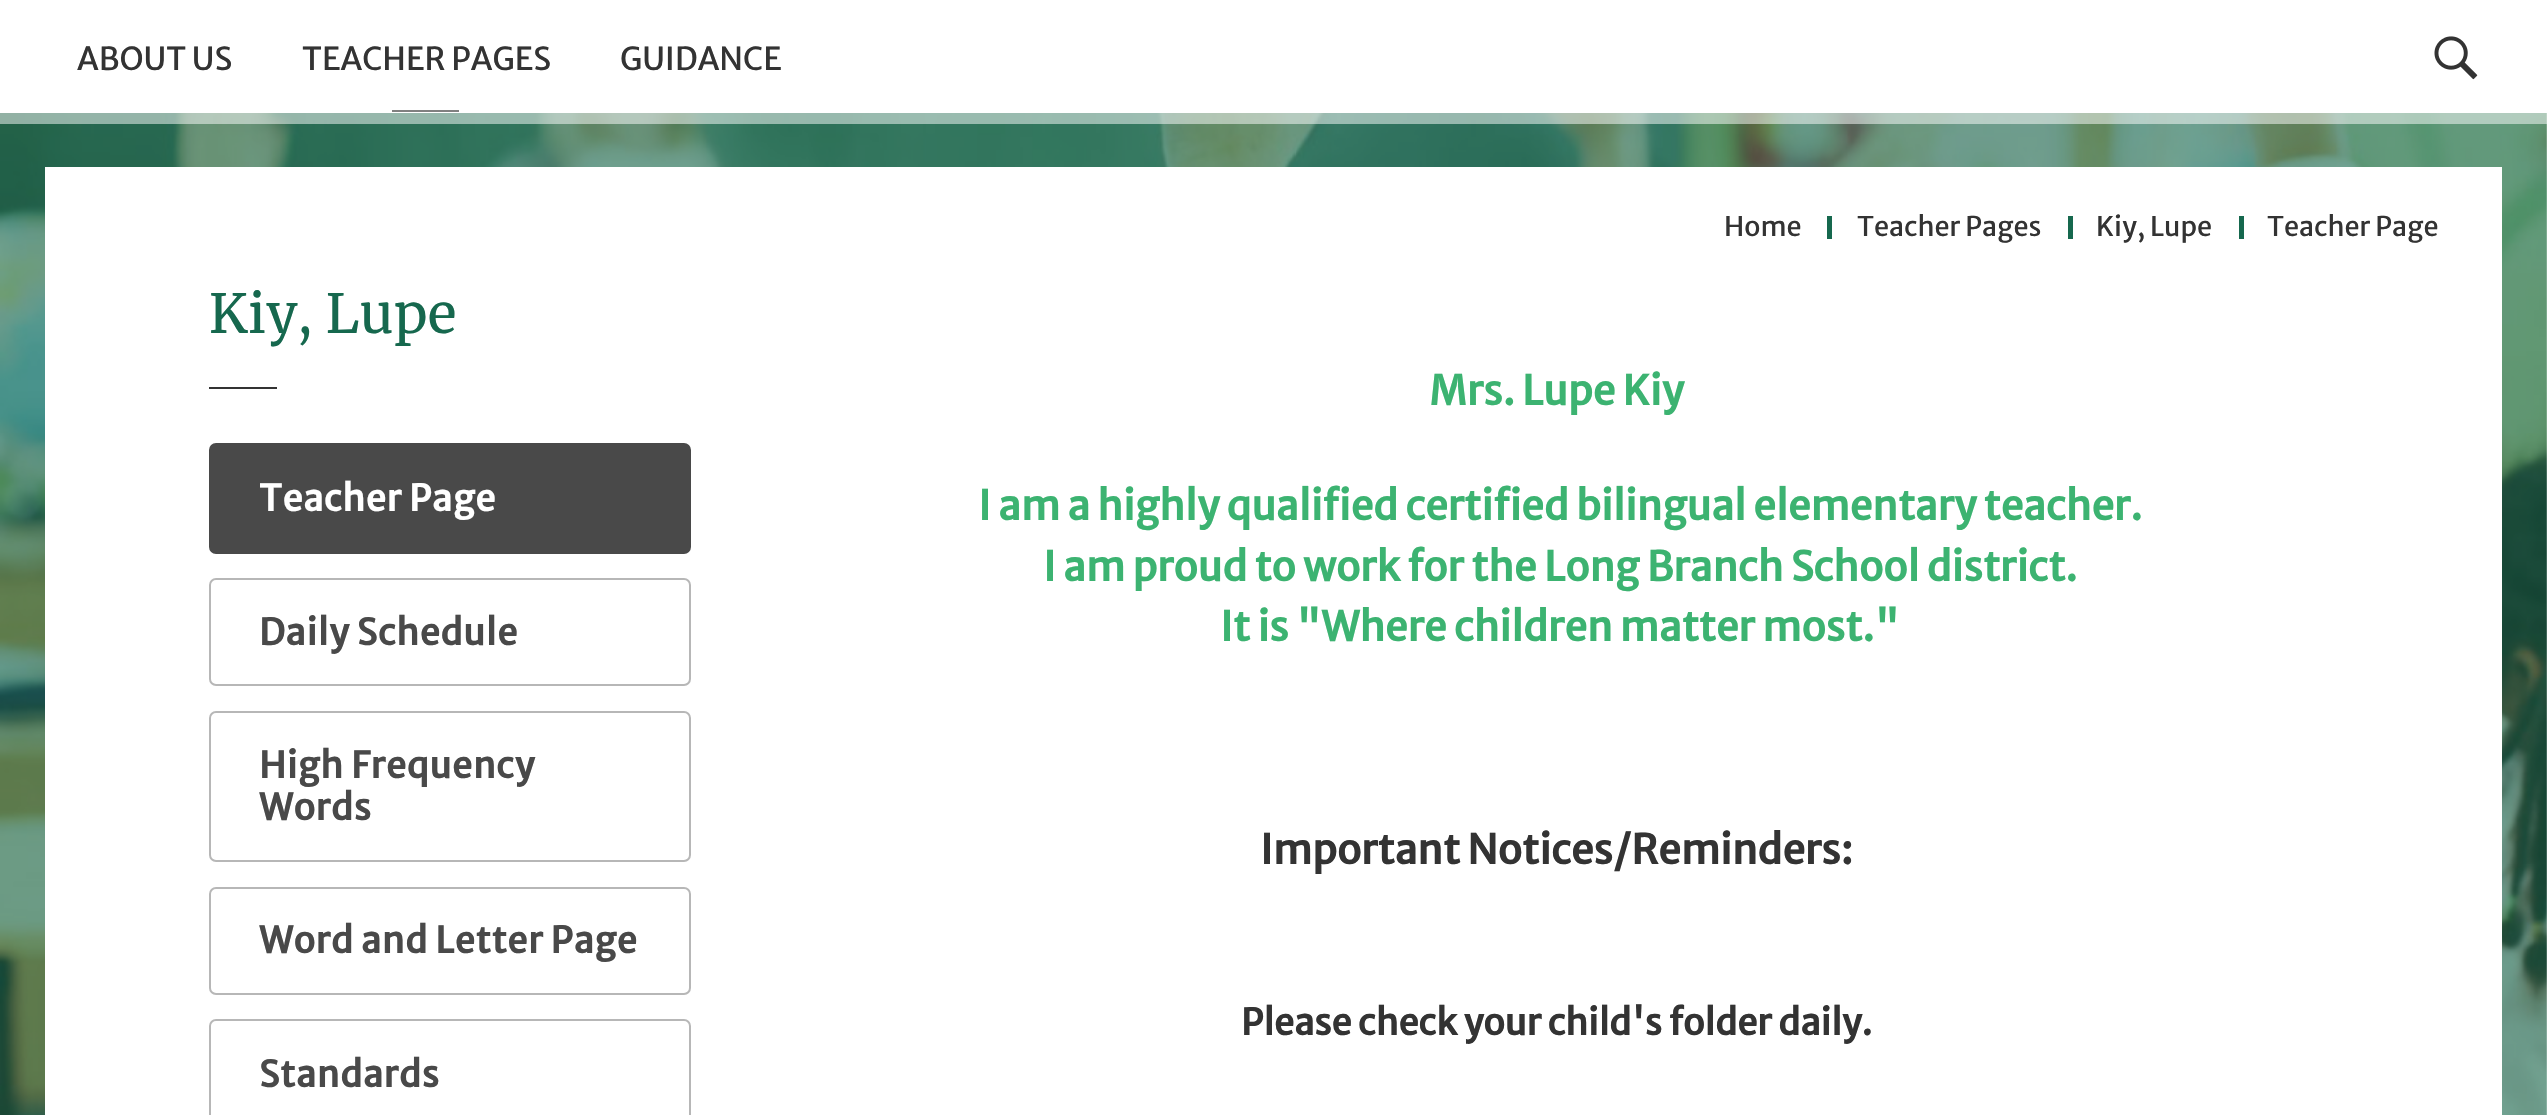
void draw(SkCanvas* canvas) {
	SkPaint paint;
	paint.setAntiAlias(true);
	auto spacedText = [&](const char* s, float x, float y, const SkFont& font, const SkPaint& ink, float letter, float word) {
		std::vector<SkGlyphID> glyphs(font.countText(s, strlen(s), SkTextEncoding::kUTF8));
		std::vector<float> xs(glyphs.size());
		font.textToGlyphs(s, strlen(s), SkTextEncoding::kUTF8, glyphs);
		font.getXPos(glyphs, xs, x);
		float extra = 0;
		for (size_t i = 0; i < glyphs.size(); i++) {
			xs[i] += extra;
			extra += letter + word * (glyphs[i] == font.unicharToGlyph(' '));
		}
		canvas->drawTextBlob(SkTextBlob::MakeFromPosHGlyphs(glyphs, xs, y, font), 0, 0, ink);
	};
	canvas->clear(0xffffffff);
	SkFont f1(fontMgr->matchFamilyStyle("Merriweather Sans", SkFontStyle::Normal()), 31.5);
	f1.setSubpixel(true);
	paint.setColor(0xff333333);
	canvas->drawString("ABOUT US", 77, 70, f1, paint);
	canvas->drawString("TEACHER PAGES", 302, 70, f1, paint);
	paint.setColor(0xff808080);
	canvas->drawRect(SkRect::MakeXYWH(392, 110, 67, 2), paint);
	paint.setColor(0xff333333);
	canvas->drawString("GUIDANCE", 620, 70, f1, paint);
	canvas->drawImageRect(SkImages::DeferredFromEncodedData(SkData::MakeFromFileName("img1.png")), SkRect::MakeXYWH(2434, 36, 44, 44), SkSamplingOptions());
	canvas->drawImageRect(SkImages::DeferredFromEncodedData(SkData::MakeFromFileName("img2.png")), SkRect::MakeXYWH(0, 113, 2547, 1002), SkSamplingOptions());
	paint.setColor(0x80ffffff);
	canvas->drawRect(SkRect::MakeXYWH(0, 113, 2547, 11), paint);
	paint.setColor(0xffffffff);
	canvas->drawRect(SkRect::MakeXYWH(45, 167, 2457, 948), paint);
	SkFont f2(fontMgr->matchFamilyStyle("Merriweather Sans", SkFontStyle::Normal()), 27);
	f2.setSubpixel(true);
	paint.setColor(0xff333333);
	canvas->drawString("Home", 1724, 236, f2, paint);
	paint.setColor(0xff16684e);
	canvas->drawRect(SkRect::MakeXYWH(1827, 216, 5, 23), paint);
	paint.setColor(0xff333333);
	canvas->drawString("Teacher Pages", 1857, 236, f2, paint);
	paint.setColor(0xff16684e);
	canvas->drawRect(SkRect::MakeXYWH(2068, 216, 5, 23), paint);
	paint.setColor(0xff333333);
	canvas->drawString("Kiy, Lupe", 2096, 236, f2, paint);
	paint.setColor(0xff16684e);
	canvas->drawRect(SkRect::MakeXYWH(2239, 216, 5, 23), paint);
	paint.setColor(0xff333333);
	canvas->drawString("Teacher Page", 2267, 236, f2, paint);
	SkFont f3(fontMgr->matchFamilyStyle("Merriweather", SkFontStyle(300, SkFontStyle::kNormal_Width, SkFontStyle::kUpright_Slant)), 54);
	f3.setSubpixel(true);
	paint.setColor(0xff16684e);
	spacedText("Kiy, Lupe", 209, 333, f3, paint, 0.5, 0);
	paint.setColor(0xff333333);
	canvas->drawRect(SkRect::MakeXYWH(209, 387, 68, 2), paint);
	paint.setColor(0xff494949);
	canvas->drawRoundRect(SkRect::MakeXYWH(210, 444, 480, 109), 6, 6, paint);
	paint.setStroke(true);
	paint.setStrokeWidth(2);
	canvas->drawRoundRect(SkRect::MakeXYWH(210, 444, 480, 109), 6, 6, paint);
	SkFont f4(fontMgr->matchFamilyStyle("Merriweather Sans", SkFontStyle::Bold()), 36);
	f4.setSubpixel(true);
	paint.setStroke(false);
	paint.setColor(0xffffffff);
	spacedText("Teacher Page", 259, 511, f4, paint, 0.7, 0);
	paint.setStroke(true);
	paint.setColor(0xffb7b7b7);
	canvas->drawRoundRect(SkRect::MakeXYWH(210, 579, 480, 106), 6, 6, paint);
	paint.setStroke(false);
	paint.setColor(0xff494949);
	spacedText("Daily Schedule", 259, 645, f4, paint, 0.7, 0);
	paint.setStroke(true);
	paint.setColor(0xffb7b7b7);
	canvas->drawRoundRect(SkRect::MakeXYWH(210, 712, 480, 149), 6, 6, paint);
	paint.setStroke(false);
	paint.setColor(0xff494949);
	spacedText("High Frequency", 259, 778, f4, paint, 0.7, 0);
	spacedText("Words", 259, 820, f4, paint, 0.7, 0);
	paint.setStroke(true);
	paint.setColor(0xffb7b7b7);
	canvas->drawRoundRect(SkRect::MakeXYWH(210, 888, 480, 106), 6, 6, paint);
	paint.setStroke(false);
	paint.setColor(0xff494949);
	spacedText("Word and Letter Page", 259, 953, f4, paint, 0.7, 0);
	paint.setStroke(true);
	paint.setColor(0xffb7b7b7);
	canvas->drawRoundRect(SkRect::MakeXYWH(210, 1020, 480, 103), 6, 6, paint);
	paint.setStroke(false);
	paint.setColor(0xff494949);
	spacedText("Standards", 259, 1087, f4, paint, 0.7, 0);
	SkFont f5(fontMgr->matchFamilyStyle("Merriweather Sans", SkFontStyle::Bold()), 40.5);
	f5.setSubpixel(true);
	paint.setColor(0xff3cb371);
	canvas->drawString("Mrs. Lupe Kiy", 1429, 405, f5, paint);
	canvas->drawString("I am a highly qualified certified bilingual elementary teacher.", 978, 520, f5, paint);
	canvas->drawString("I am proud to work for the Long Branch School district.", 1043, 581, f5, paint);
	canvas->drawString("It is \"Where children matter most.\"", 1220, 641, f5, paint);
	paint.setColor(0xff333333);
	canvas->drawString("Important Notices/Reminders:", 1260, 864, f5, paint);
	canvas->drawString("Please check your child's folder daily.", 1241, 1035, f4, paint);
}
